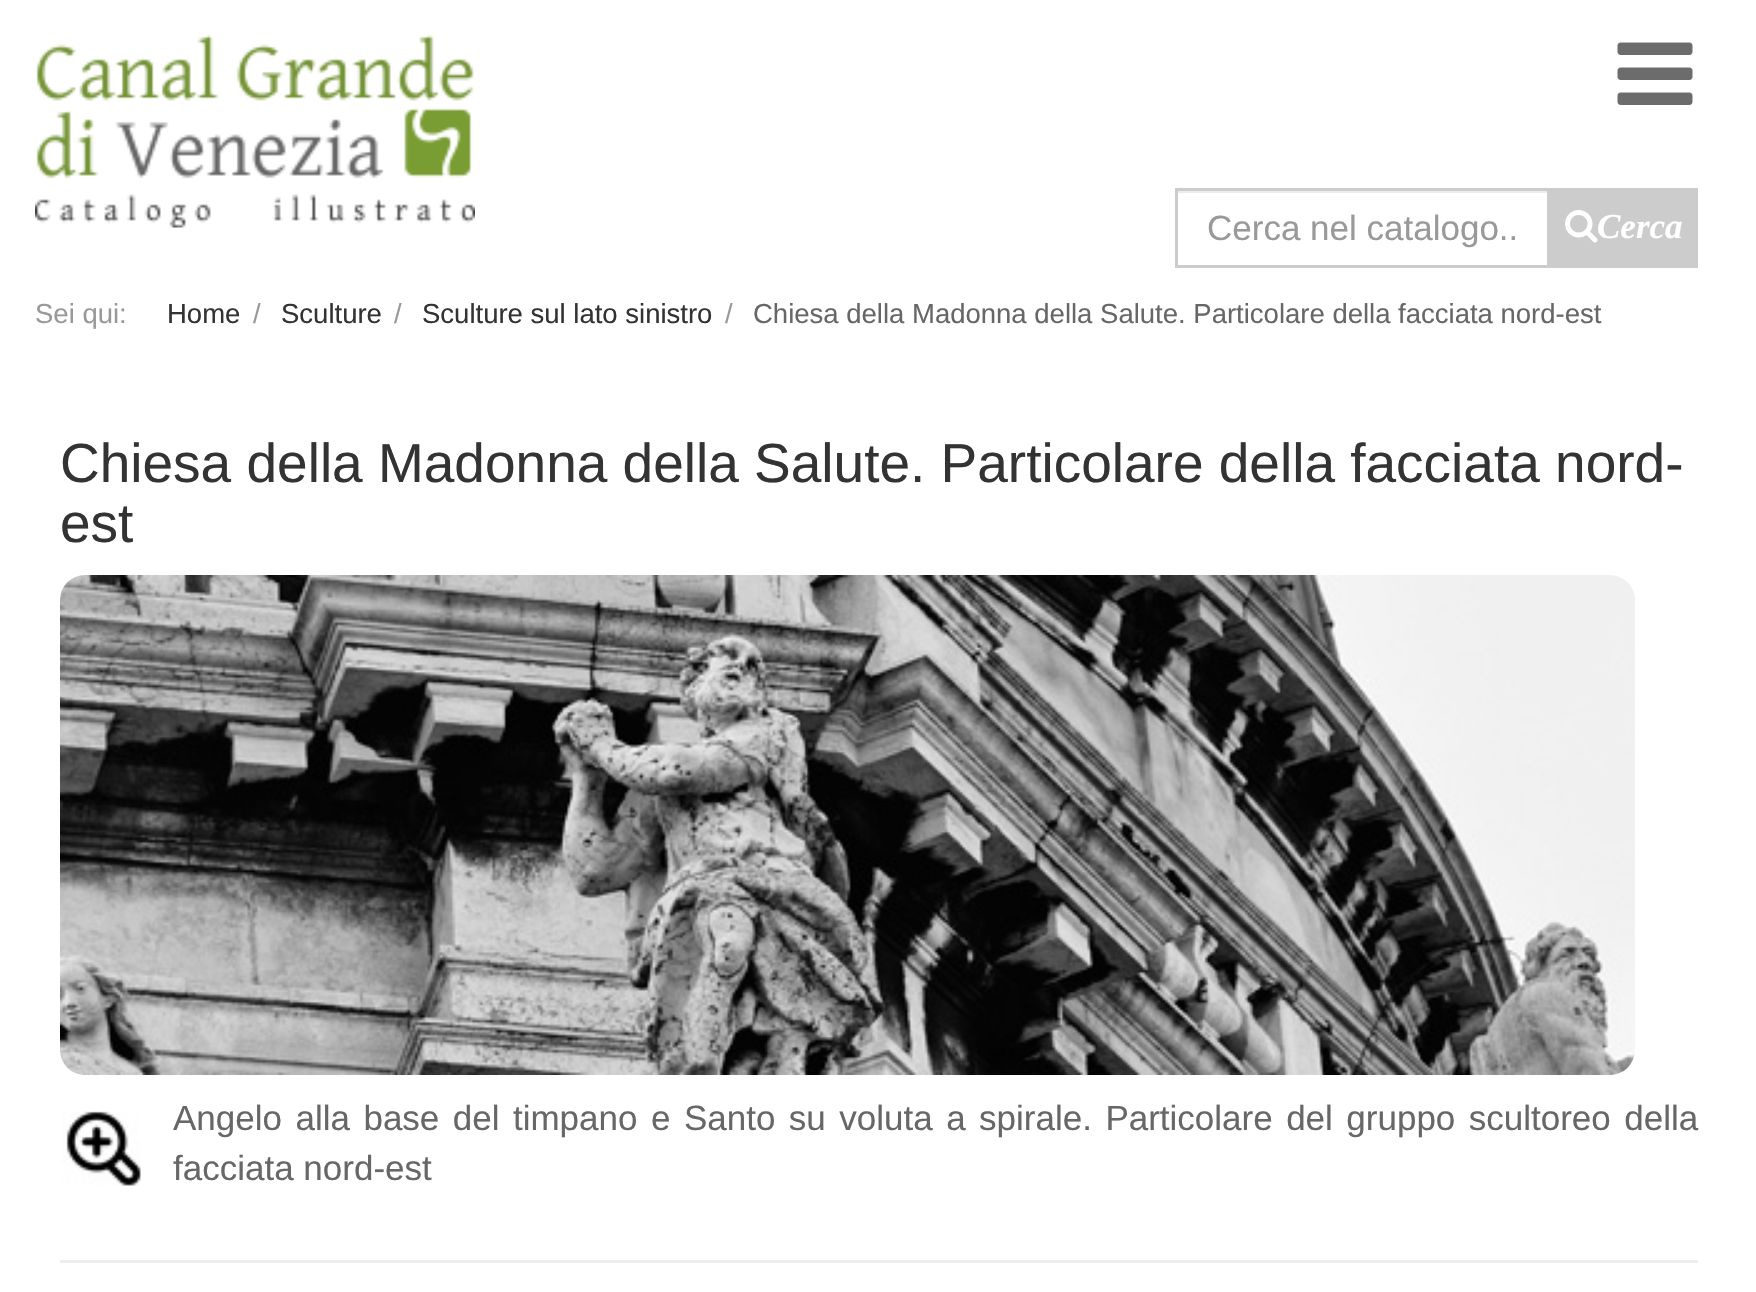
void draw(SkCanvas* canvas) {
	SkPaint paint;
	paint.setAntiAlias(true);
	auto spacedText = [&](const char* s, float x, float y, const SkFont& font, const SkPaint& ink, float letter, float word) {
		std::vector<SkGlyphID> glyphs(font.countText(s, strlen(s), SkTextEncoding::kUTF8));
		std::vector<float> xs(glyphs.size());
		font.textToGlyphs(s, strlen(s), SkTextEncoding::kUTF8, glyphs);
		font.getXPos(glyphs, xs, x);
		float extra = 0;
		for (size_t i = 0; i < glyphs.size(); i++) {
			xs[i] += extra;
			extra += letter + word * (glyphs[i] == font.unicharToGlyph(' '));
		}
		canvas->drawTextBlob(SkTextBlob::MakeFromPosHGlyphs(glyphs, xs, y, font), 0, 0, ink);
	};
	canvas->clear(0xffffffff);
	canvas->drawImageRect(SkImages::DeferredFromEncodedData(SkData::MakeFromFileName("img1.png")), SkRect::MakeXYWH(35, 34, 440, 194), SkSamplingOptions());
	canvas->drawImageRect(SkImages::DeferredFromEncodedData(SkData::MakeFromFileName("img2.png")), SkRect::MakeXYWH(1617, 42, 76, 63), SkSamplingOptions());
	paint.setColor(0xffececec);
	canvas->drawRect(SkRect::MakeXYWH(1178, 191, 370, 2), paint);
	paint.setStroke(true);
	paint.setStrokeWidth(3);
	paint.setColor(0xffcccccc);
	canvas->drawRect(SkRect::MakeXYWH(1176.5, 189.5, 372, 77), paint);
	SkFont f1(fontMgr->matchFamilyStyle("Liberation Sans", SkFontStyle::Normal()), 35);
	f1.setSubpixel(true);
	paint.setStroke(false);
	paint.setColor(0xff999999);
	canvas->drawString("Cerca nel catalogo..", 1207, 240, f1, paint);
	paint.setColor(0xffcccccc);
	canvas->drawRect(SkRect::MakeXYWH(1550, 188, 148, 80), paint);
	canvas->drawImageRect(SkImages::DeferredFromEncodedData(SkData::MakeFromFileName("img3.png")), SkRect::MakeXYWH(1565, 210, 33, 33), SkSamplingOptions());
	SkFont f2(fontMgr->matchFamilyStyle("Liberation Serif", SkFontStyle::BoldItalic()), 35);
	f2.setSubpixel(true);
	paint.setColor(0xffffffff);
	canvas->drawString("Cerca", 1597, 238, f2, paint);
	SkFont f3(fontMgr->matchFamilyStyle("Liberation Sans", SkFontStyle::Normal()), 27.5);
	f3.setSubpixel(true);
	paint.setColor(0xff999999);
	canvas->drawString("Sei qui:", 35, 323, f3, paint);
	paint.setColor(0xff333333);
	canvas->drawString("Home", 167, 323, f3, paint);
	paint.setColor(0xff999999);
	canvas->drawString("/", 253, 323, f3, paint);
	paint.setColor(0xff333333);
	canvas->drawString("Sculture", 281, 323, f3, paint);
	paint.setColor(0xff999999);
	canvas->drawString("/", 394, 323, f3, paint);
	paint.setColor(0xff333333);
	canvas->drawString("Sculture sul lato sinistro", 422, 323, f3, paint);
	paint.setColor(0xff999999);
	canvas->drawString("/", 725, 323, f3, paint);
	paint.setColor(0xff676767);
	canvas->drawString("Chiesa della Madonna della Salute. Particolare della facciata nord-est", 753, 323, f3, paint);
	SkFont f4(fontMgr->matchFamilyStyle("Liberation Sans", SkFontStyle::Normal()), 55);
	f4.setSubpixel(true);
	paint.setColor(0xff333333);
	canvas->drawString("Chiesa della Madonna della Salute. Particolare della facciata nord-", 60, 482, f4, paint);
	canvas->drawString("est", 60, 542, f4, paint);
	canvas->drawImageRect(SkImages::DeferredFromEncodedData(SkData::MakeFromFileName("img4.png")), SkRect::MakeXYWH(60, 575, 1575, 500), SkSamplingOptions());
	canvas->drawImageRect(SkImages::DeferredFromEncodedData(SkData::MakeFromFileName("img5.png")), SkRect::MakeXYWH(62, 1111, 79, 75), SkSamplingOptions());
	paint.setColor(0xff676767);
	spacedText("Angelo alla base del timpano e Santo su voluta a spirale. Particolare del gruppo scultoreo della", 173, 1130, f1, paint, 0, 3.75);
	canvas->drawString("facciata nord-est", 173, 1180, f1, paint);
	paint.setColor(0xffeeeeee);
	canvas->drawRect(SkRect::MakeXYWH(60, 1260, 1638, 3), paint);
}
